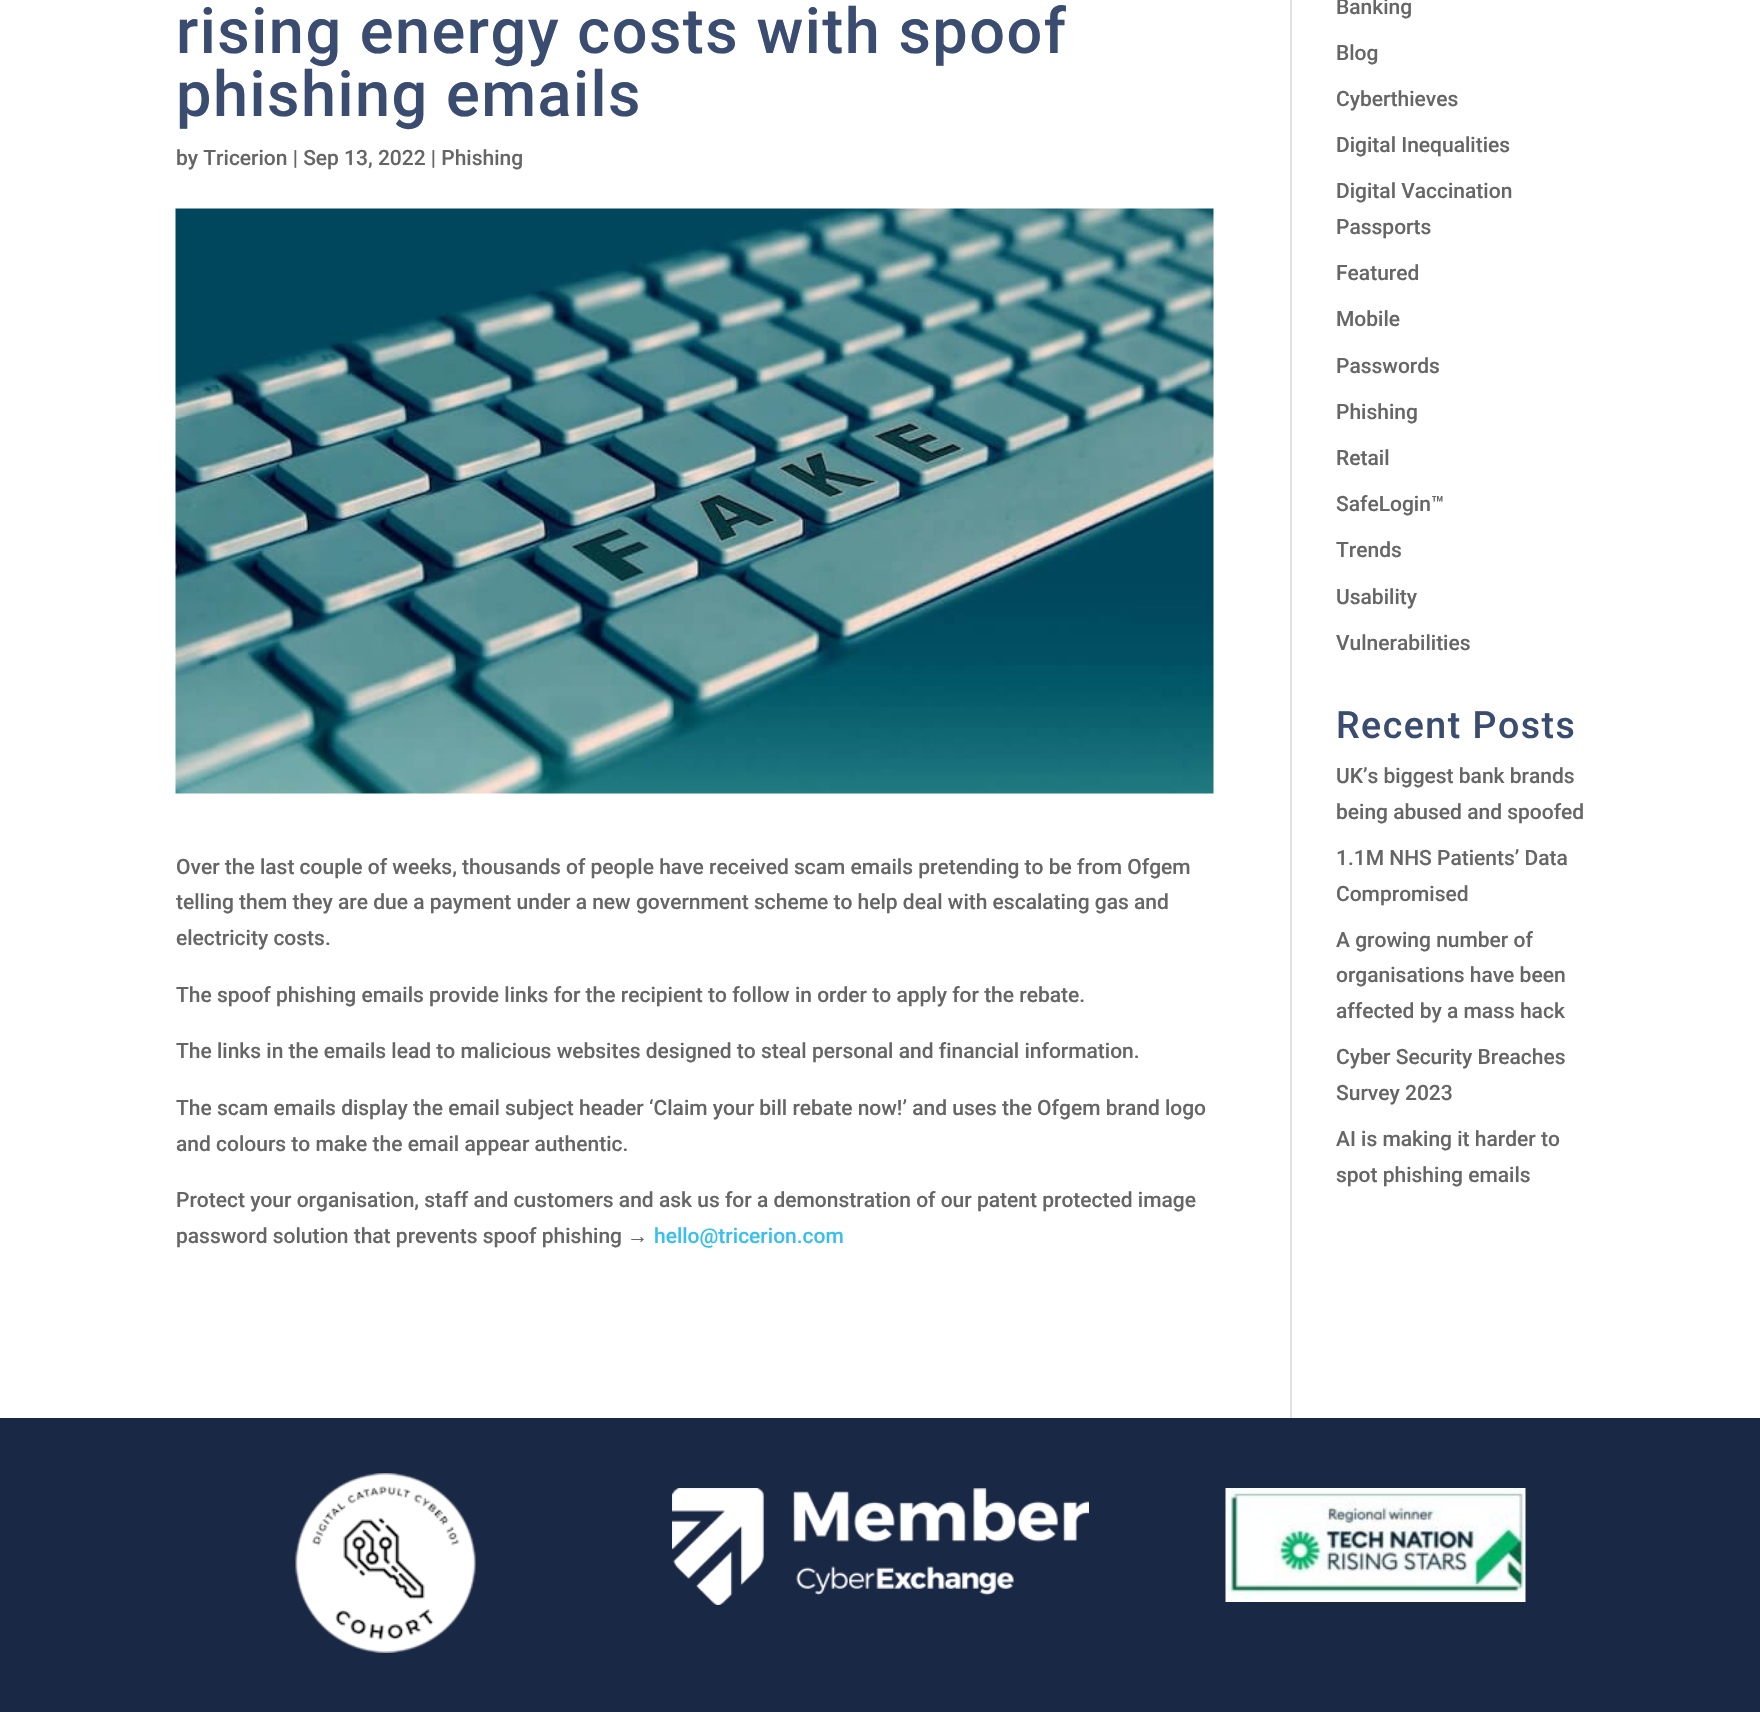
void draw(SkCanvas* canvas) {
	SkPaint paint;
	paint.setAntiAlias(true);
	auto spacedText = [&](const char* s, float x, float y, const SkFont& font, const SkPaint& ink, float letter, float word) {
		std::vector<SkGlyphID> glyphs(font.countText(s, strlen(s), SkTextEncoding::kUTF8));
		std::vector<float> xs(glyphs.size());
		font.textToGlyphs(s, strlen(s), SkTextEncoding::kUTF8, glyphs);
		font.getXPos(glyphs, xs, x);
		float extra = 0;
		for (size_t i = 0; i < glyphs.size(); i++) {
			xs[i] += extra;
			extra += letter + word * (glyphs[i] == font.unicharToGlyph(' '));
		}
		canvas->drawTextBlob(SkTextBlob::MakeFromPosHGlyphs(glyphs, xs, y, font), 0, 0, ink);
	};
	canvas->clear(0xffffffff);
	SkFont f1(fontMgr->matchFamilyStyle("Roboto", SkFontStyle(500, SkFontStyle::kNormal_Width, SkFontStyle::kUpright_Slant)), 63);
	f1.setSubpixel(true);
	paint.setColor(0xff3a4c70);
	spacedText("rising energy costs with spoof", 176, 53, f1, paint, 1.5, 0);
	spacedText("phishing emails", 176, 116, f1, paint, 1.5, 0);
	SkFont f2(fontMgr->matchFamilyStyle("Roboto", SkFontStyle(500, SkFontStyle::kNormal_Width, SkFontStyle::kUpright_Slant)), 21);
	f2.setSubpixel(true);
	paint.setColor(0xff666666);
	canvas->drawString("by Tricerion | Sep 13, 2022 | Phishing", 176, 165, f2, paint);
	canvas->drawImageRect(SkImages::DeferredFromEncodedData(SkData::MakeFromFileName("img1.png")), SkRect::MakeXYWH(175, 208, 1039, 586), SkSamplingOptions());
	canvas->drawString("Over the last couple of weeks, thousands of people have received scam emails pretending to be from Ofgem", 176, 874, f2, paint);
	canvas->drawString("telling them they are due a payment under a new government scheme to help deal with escalating gas and", 176, 909, f2, paint);
	canvas->drawString("electricity costs.", 176, 945, f2, paint);
	canvas->drawString("The spoof phishing emails provide links for the recipient to follow in order to apply for the rebate.", 176, 1002, f2, paint);
	canvas->drawString("The links in the emails lead to malicious websites designed to steal personal and financial information.", 176, 1058, f2, paint);
	canvas->drawString("The scam emails display the email subject header ‘Claim your bill rebate now!’ and uses the Ofgem brand logo", 176, 1115, f2, paint);
	canvas->drawString("and colours to make the email appear authentic.", 176, 1151, f2, paint);
	canvas->drawString("Protect your organisation, staff and customers and ask us for a demonstration of our patent protected image", 176, 1207, f2, paint);
	canvas->drawString("password solution that prevents spoof phishing", 176, 1243, f2, paint);
	SkFont f3(fontMgr->matchFamilyStyle("Liberation Sans", SkFontStyle::Normal()), 21);
	f3.setSubpixel(true);
	canvas->drawString("→", 627, 1243, f3, paint);
	paint.setColor(0xff36bfef);
	canvas->drawString("hello@tricerion.com", 654, 1243, f2, paint);
	paint.setColor(0xff666666);
	canvas->drawString("Banking", 1336, 14, f2, paint);
	canvas->drawString("Blog", 1336, 60, f2, paint);
	canvas->drawString("Cyberthieves", 1336, 106, f2, paint);
	canvas->drawString("Digital Inequalities", 1336, 152, f2, paint);
	canvas->drawString("Digital Vaccination", 1336, 198, f2, paint);
	canvas->drawString("Passports", 1336, 234, f2, paint);
	canvas->drawString("Featured", 1336, 280, f2, paint);
	canvas->drawString("Mobile", 1336, 326, f2, paint);
	canvas->drawString("Passwords", 1336, 373, f2, paint);
	canvas->drawString("Phishing", 1336, 419, f2, paint);
	canvas->drawString("Retail", 1336, 465, f2, paint);
	canvas->drawString("SafeLogin™", 1336, 511, f2, paint);
	canvas->drawString("Trends", 1336, 557, f2, paint);
	canvas->drawString("Usability", 1336, 604, f2, paint);
	canvas->drawString("Vulnerabilities", 1336, 650, f2, paint);
	SkFont f4(fontMgr->matchFamilyStyle("Roboto", SkFontStyle(500, SkFontStyle::kNormal_Width, SkFontStyle::kUpright_Slant)), 37.5);
	f4.setSubpixel(true);
	paint.setColor(0xff3a4c70);
	spacedText("Recent Posts", 1336, 738, f4, paint, 1.5, 0);
	paint.setColor(0xff666666);
	canvas->drawString("UK’s biggest bank brands", 1336, 783, f2, paint);
	canvas->drawString("being abused and spoofed", 1336, 819, f2, paint);
	canvas->drawString("1.1M NHS Patients’ Data", 1336, 865, f2, paint);
	canvas->drawString("Compromised", 1336, 901, f2, paint);
	canvas->drawString("A growing number of", 1336, 947, f2, paint);
	canvas->drawString("organisations have been", 1336, 982, f2, paint);
	canvas->drawString("affected by a mass hack", 1336, 1018, f2, paint);
	canvas->drawString("Cyber Security Breaches", 1336, 1064, f2, paint);
	canvas->drawString("Survey 2023", 1336, 1100, f2, paint);
	canvas->drawString("AI is making it harder to", 1336, 1146, f2, paint);
	canvas->drawString("spot phishing emails", 1336, 1182, f2, paint);
	paint.setColor(0xffe2e2e2);
	canvas->drawRect(SkRect::MakeXYWH(1290, 0, 2, 1418), paint);
	paint.setColor(0xff192844);
	canvas->drawRect(SkRect::MakeXYWH(0, 1418, 1760, 294), paint);
	canvas->drawImageRect(SkImages::DeferredFromEncodedData(SkData::MakeFromFileName("img2.png")), SkRect::MakeXYWH(295, 1473, 181, 180), SkSamplingOptions());
	canvas->drawImageRect(SkImages::DeferredFromEncodedData(SkData::MakeFromFileName("img3.png")), SkRect::MakeXYWH(672, 1488, 417, 117), SkSamplingOptions());
	canvas->drawImageRect(SkImages::DeferredFromEncodedData(SkData::MakeFromFileName("img4.png")), SkRect::MakeXYWH(1225, 1488, 301, 114), SkSamplingOptions());
}
